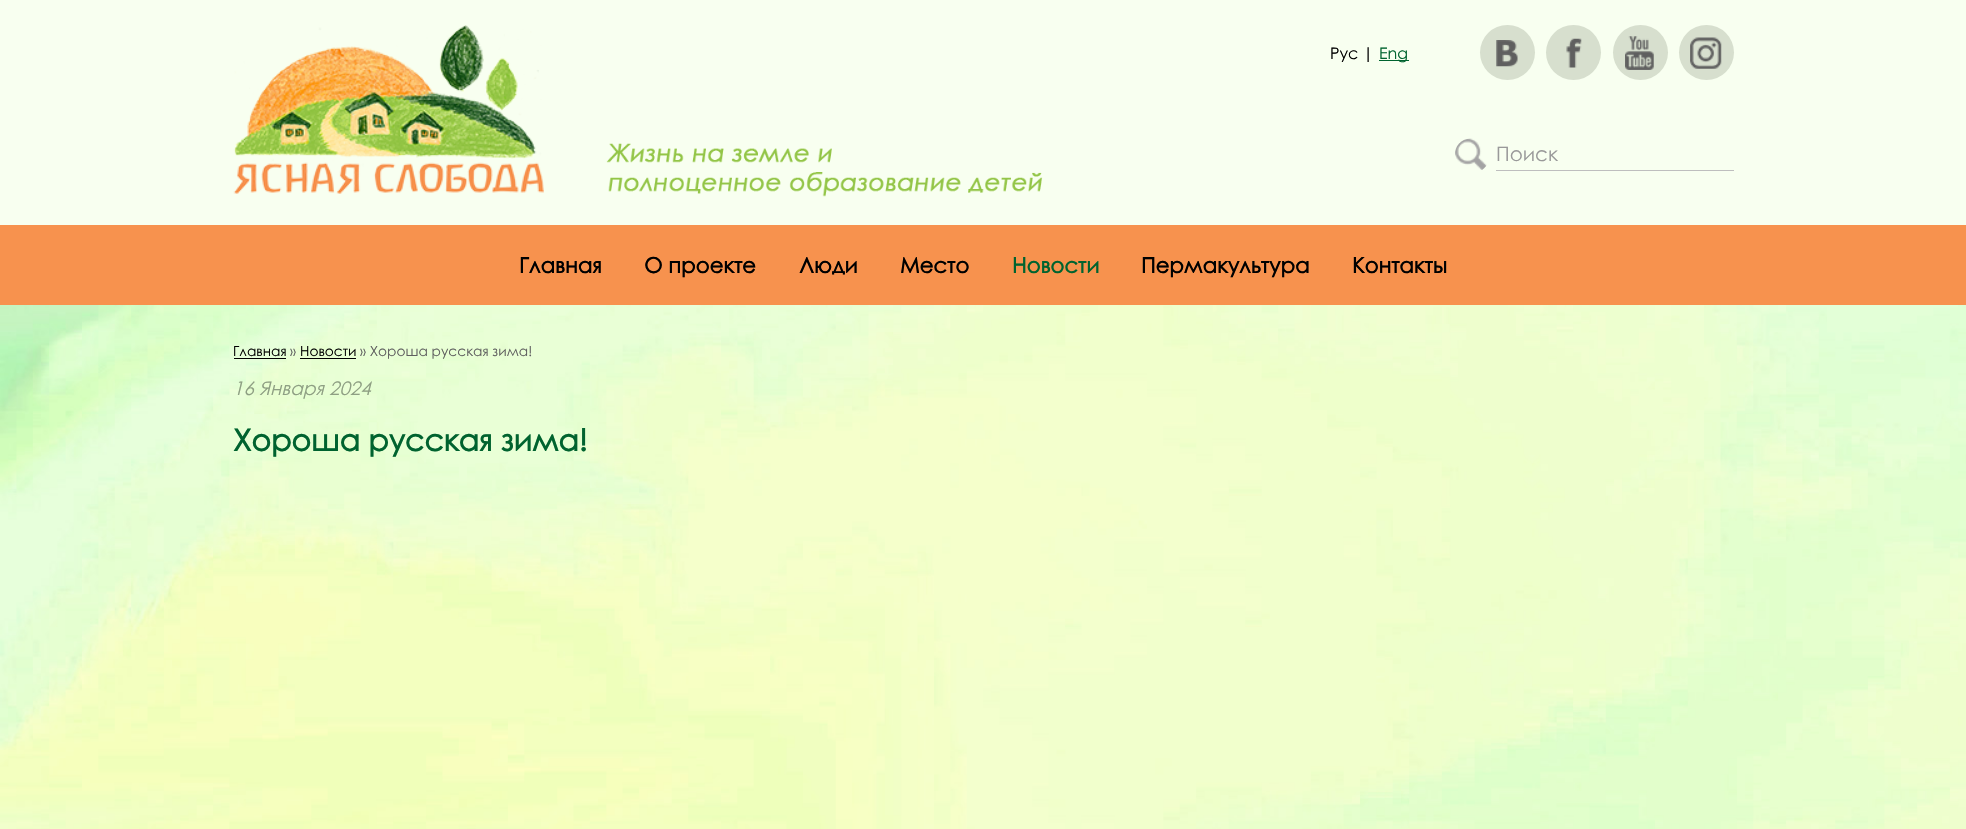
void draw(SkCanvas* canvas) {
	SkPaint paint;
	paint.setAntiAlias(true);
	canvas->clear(0xffffffff);
	canvas->drawImageRect(SkImages::DeferredFromEncodedData(SkData::MakeFromFileName("img1.png")), SkRect::MakeXYWH(0, 305, 1966, 524), SkSamplingOptions());
	paint.setColor(0xfff8fff0);
	canvas->drawRect(SkRect::MakeXYWH(0, 0, 1966, 225), paint);
	canvas->drawImageRect(SkImages::DeferredFromEncodedData(SkData::MakeFromFileName("img2.png")), SkRect::MakeXYWH(233, 25, 311, 169), SkSamplingOptions());
	SkFont f1(fontMgr->matchFamilyStyle("Century Gothic", SkFontStyle::Normal()), 16);
	f1.setSubpixel(true);
	paint.setColor(0xff000000);
	canvas->drawString("Рус |", 1330, 59, f1, paint);
	paint.setColor(0xff00632f);
	canvas->drawRect(SkRect::MakeXYWH(1379, 60, 30, 1), paint);
	canvas->drawString("Eng", 1379, 59, f1, paint);
	paint.setColor(0xffd7dfce);
	canvas->drawCircle(1507.5, 52.5, 27.5, paint);
	canvas->drawImageRect(SkImages::DeferredFromEncodedData(SkData::MakeFromFileName("img3.png")), SkRect::MakeXYWH(1496, 40, 22, 27), SkSamplingOptions());
	canvas->drawCircle(1573.5, 52.5, 27.5, paint);
	canvas->drawImageRect(SkImages::DeferredFromEncodedData(SkData::MakeFromFileName("img4.png")), SkRect::MakeXYWH(1566, 38, 16, 30), SkSamplingOptions());
	canvas->drawCircle(1640.5, 52.5, 27.5, paint);
	canvas->drawImageRect(SkImages::DeferredFromEncodedData(SkData::MakeFromFileName("img5.png")), SkRect::MakeXYWH(1625, 36, 29, 34), SkSamplingOptions());
	canvas->drawCircle(1706.5, 52.5, 27.5, paint);
	canvas->drawImageRect(SkImages::DeferredFromEncodedData(SkData::MakeFromFileName("img6.png")), SkRect::MakeXYWH(1690, 37, 32, 32), SkSamplingOptions());
	canvas->drawImageRect(SkImages::DeferredFromEncodedData(SkData::MakeFromFileName("img7.png")), SkRect::MakeXYWH(1455, 138, 32, 32), SkSamplingOptions());
	paint.setColor(0xffbebebe);
	canvas->drawRect(SkRect::MakeXYWH(1496, 170, 238, 1), paint);
	SkFont f2(fontMgr->matchFamilyStyle("Century Gothic", SkFontStyle::Normal()), 20);
	f2.setSubpixel(true);
	paint.setColor(0xff999999);
	canvas->drawString("Поиск", 1496, 161, f2, paint);
	canvas->drawImageRect(SkImages::DeferredFromEncodedData(SkData::MakeFromFileName("img8.png")), SkRect::MakeXYWH(606, 143, 437, 54), SkSamplingOptions());
	paint.setColor(0xfff7924e);
	canvas->drawRect(SkRect::MakeXYWH(0, 225, 1966, 80), paint);
	SkFont f3(fontMgr->matchFamilyStyle("Century Gothic", SkFontStyle::Bold()), 21.25);
	f3.setSubpixel(true);
	paint.setColor(0xff000000);
	canvas->drawString("Главная", 519, 273, f3, paint);
	canvas->drawString("О проекте", 644, 273, f3, paint);
	canvas->drawString("Люди", 799, 273, f3, paint);
	canvas->drawString("Место", 900, 273, f3, paint);
	paint.setColor(0xff00632f);
	canvas->drawString("Новости", 1012, 273, f3, paint);
	paint.setColor(0xff000000);
	canvas->drawString("Пермакультура", 1141, 273, f3, paint);
	canvas->drawString("Контакты", 1352, 273, f3, paint);
	SkFont f4(fontMgr->matchFamilyStyle("Century Gothic", SkFontStyle::Normal()), 13.75);
	f4.setSubpixel(true);
	canvas->drawString("Главная", 233, 356, f4, paint);
	canvas->drawRect(SkRect::MakeXYWH(234, 358, 52, 1), paint);
	paint.setColor(0xff5f5f5f);
	canvas->drawString("»", 290, 356, f4, paint);
	paint.setColor(0xff000000);
	canvas->drawString("Новости", 300, 356, f4, paint);
	canvas->drawRect(SkRect::MakeXYWH(300, 358, 56, 1), paint);
	paint.setColor(0xff5f5f5f);
	canvas->drawString("» Хороша русская зима!", 360, 356, f4, paint);
	SkFont f5(fontMgr->matchFamilyStyle("Century Gothic", SkFontStyle::Italic()), 18.75);
	f5.setSubpixel(true);
	paint.setColor(0xff8e9f83);
	canvas->drawString("16 Января 2024", 233, 395, f5, paint);
	SkFont f6(fontMgr->matchFamilyStyle("Century Gothic", SkFontStyle::Bold()), 30);
	f6.setSubpixel(true);
	paint.setColor(0xff00632f);
	canvas->drawString("Хороша русская зима!", 233, 451, f6, paint);
}
